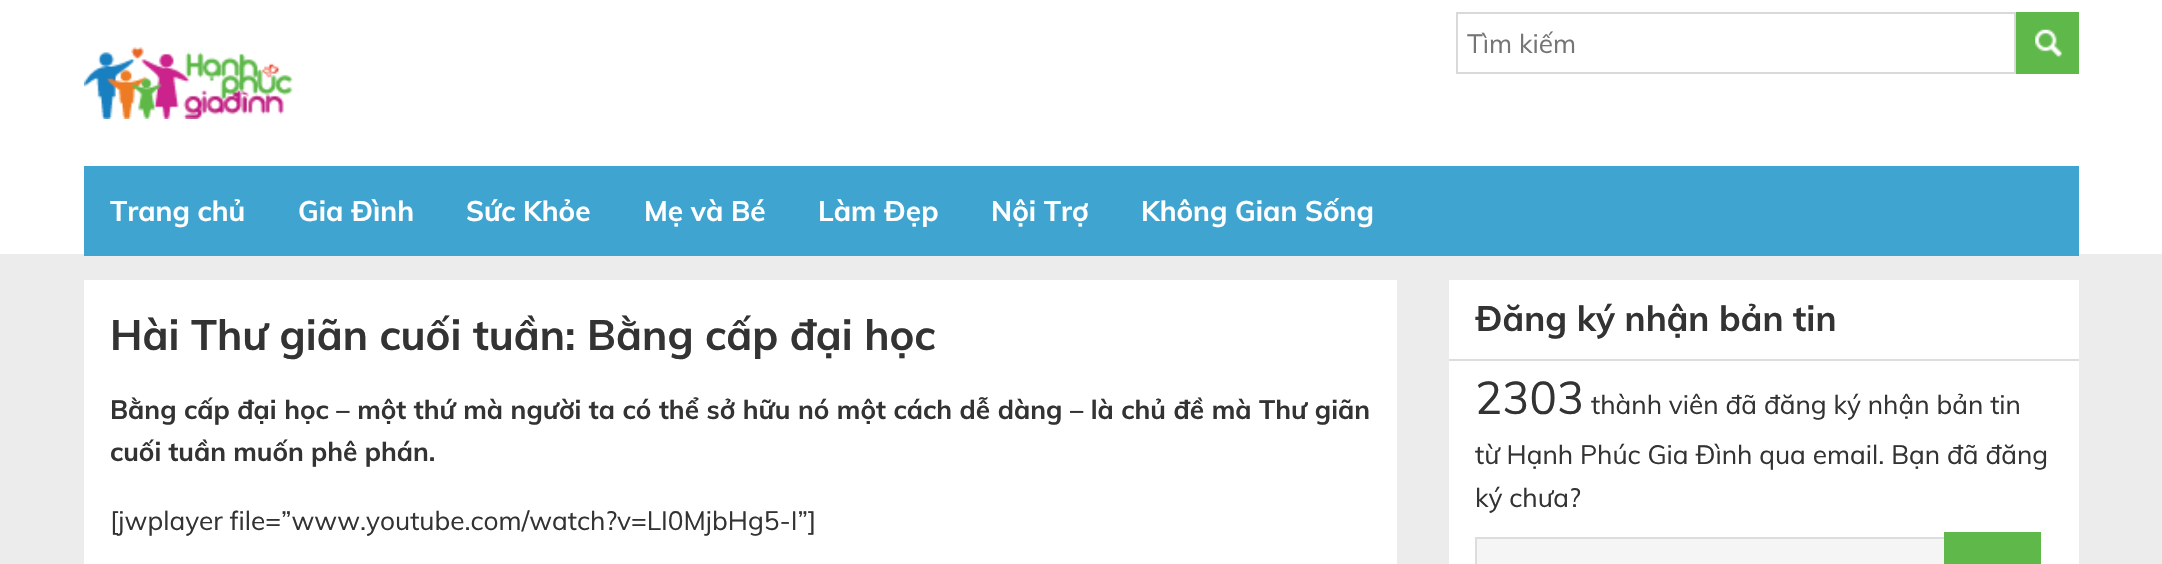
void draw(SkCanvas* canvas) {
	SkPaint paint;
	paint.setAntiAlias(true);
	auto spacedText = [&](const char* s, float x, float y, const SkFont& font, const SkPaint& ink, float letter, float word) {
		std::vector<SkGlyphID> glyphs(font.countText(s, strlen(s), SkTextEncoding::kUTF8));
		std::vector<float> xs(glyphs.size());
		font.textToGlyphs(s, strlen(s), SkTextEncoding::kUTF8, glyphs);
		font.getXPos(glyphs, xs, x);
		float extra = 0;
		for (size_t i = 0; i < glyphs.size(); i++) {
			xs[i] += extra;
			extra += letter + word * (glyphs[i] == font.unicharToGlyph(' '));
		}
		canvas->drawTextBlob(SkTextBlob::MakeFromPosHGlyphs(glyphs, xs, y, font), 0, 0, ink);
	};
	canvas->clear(0xffececec);
	paint.setColor(0xffffffff);
	canvas->drawRect(SkRect::MakeXYWH(0, 0, 2162, 254), paint);
	paint.setStroke(true);
	paint.setStrokeWidth(2);
	paint.setColor(0xffd9d9d9);
	canvas->drawRect(SkRect::MakeXYWH(1457, 13, 558, 60), paint);
	SkFont f1(fontMgr->matchFamilyStyle("Muli", SkFontStyle::Normal()), 26.25);
	f1.setSubpixel(true);
	paint.setStroke(false);
	paint.setColor(0xff757575);
	canvas->drawString("Tìm kiếm", 1467, 53, f1, paint);
	paint.setColor(0xff5eb84a);
	canvas->drawRect(SkRect::MakeXYWH(2016, 12, 63, 62), paint);
	canvas->drawImageRect(SkImages::DeferredFromEncodedData(SkData::MakeFromFileName("img1.png")), SkRect::MakeXYWH(2035, 29, 27, 29), SkSamplingOptions());
	canvas->drawImageRect(SkImages::DeferredFromEncodedData(SkData::MakeFromFileName("img2.png")), SkRect::MakeXYWH(84, 47, 209, 72), SkSamplingOptions());
	paint.setColor(0xff3fa4cf);
	canvas->drawRect(SkRect::MakeXYWH(84, 166, 1995, 90), paint);
	SkFont f2(fontMgr->matchFamilyStyle("Muli", SkFontStyle::Bold()), 28);
	f2.setSubpixel(true);
	paint.setColor(0xffffffff);
	canvas->drawString("Trang chủ", 110, 221, f2, paint);
	canvas->drawString("Gia Đình", 298, 221, f2, paint);
	canvas->drawString("Sức Khỏe", 466, 221, f2, paint);
	canvas->drawString("Mẹ và Bé", 644, 221, f2, paint);
	canvas->drawString("Làm Đẹp", 818, 221, f2, paint);
	canvas->drawString("Nội Trợ", 991, 221, f2, paint);
	canvas->drawString("Không Gian Sống", 1141, 221, f2, paint);
	canvas->drawRect(SkRect::MakeXYWH(84, 280, 1313, 284), paint);
	SkFont f3(fontMgr->matchFamilyStyle("Muli", SkFontStyle::Bold()), 42);
	f3.setSubpixel(true);
	paint.setColor(0xff333333);
	canvas->drawString("Hài Thư giãn cuối tuần: Bằng cấp đại học", 110, 350, f3, paint);
	SkFont f4(fontMgr->matchFamilyStyle("Muli", SkFontStyle::Bold()), 26.25);
	f4.setSubpixel(true);
	spacedText("Bằng cấp đại học – một thứ mà người ta có thể sở hữu nó một cách dễ dàng – là chủ đề mà Thư giãn", 110, 419, f4, paint, 0, 0.35);
	canvas->drawString("cuối tuần muốn phê phán.", 110, 461, f4, paint);
	canvas->drawString("[jwplayer file=”www.youtube.com/watch?v=LI0MjbHg5-I”]", 110, 530, f1, paint);
	paint.setColor(0xffffffff);
	canvas->drawRect(SkRect::MakeXYWH(1449, 280, 630, 284), paint);
	paint.setColor(0xffdddddd);
	canvas->drawRect(SkRect::MakeXYWH(1449, 359, 630, 2), paint);
	SkFont f5(fontMgr->matchFamilyStyle("Muli", SkFontStyle::Bold()), 35);
	f5.setSubpixel(true);
	paint.setColor(0xff333333);
	canvas->drawString("Đăng ký nhận bản tin", 1475, 331, f5, paint);
	SkFont f6(fontMgr->matchFamilyStyle("Muli", SkFontStyle::Normal()), 45.5);
	f6.setSubpixel(true);
	canvas->drawString("2303", 1475, 414, f6, paint);
	canvas->drawString("thành viên đã đăng ký nhận bản tin", 1591, 414, f1, paint);
	canvas->drawString("từ Hạnh Phúc Gia Đình qua email. Bạn đã đăng", 1475, 464, f1, paint);
	canvas->drawString("ký chưa?", 1475, 507, f1, paint);
	paint.setColor(0xfff5f5f5);
	canvas->drawRect(SkRect::MakeXYWH(1477, 539, 467, 25), paint);
	paint.setStroke(true);
	paint.setColor(0xffdddddd);
	canvas->drawRect(SkRect::MakeXYWH(1476, 538, 473, 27), paint);
	paint.setStroke(false);
	paint.setColor(0xff5eb84a);
	canvas->drawRect(SkRect::MakeXYWH(1944, 532, 97, 32), paint);
}
